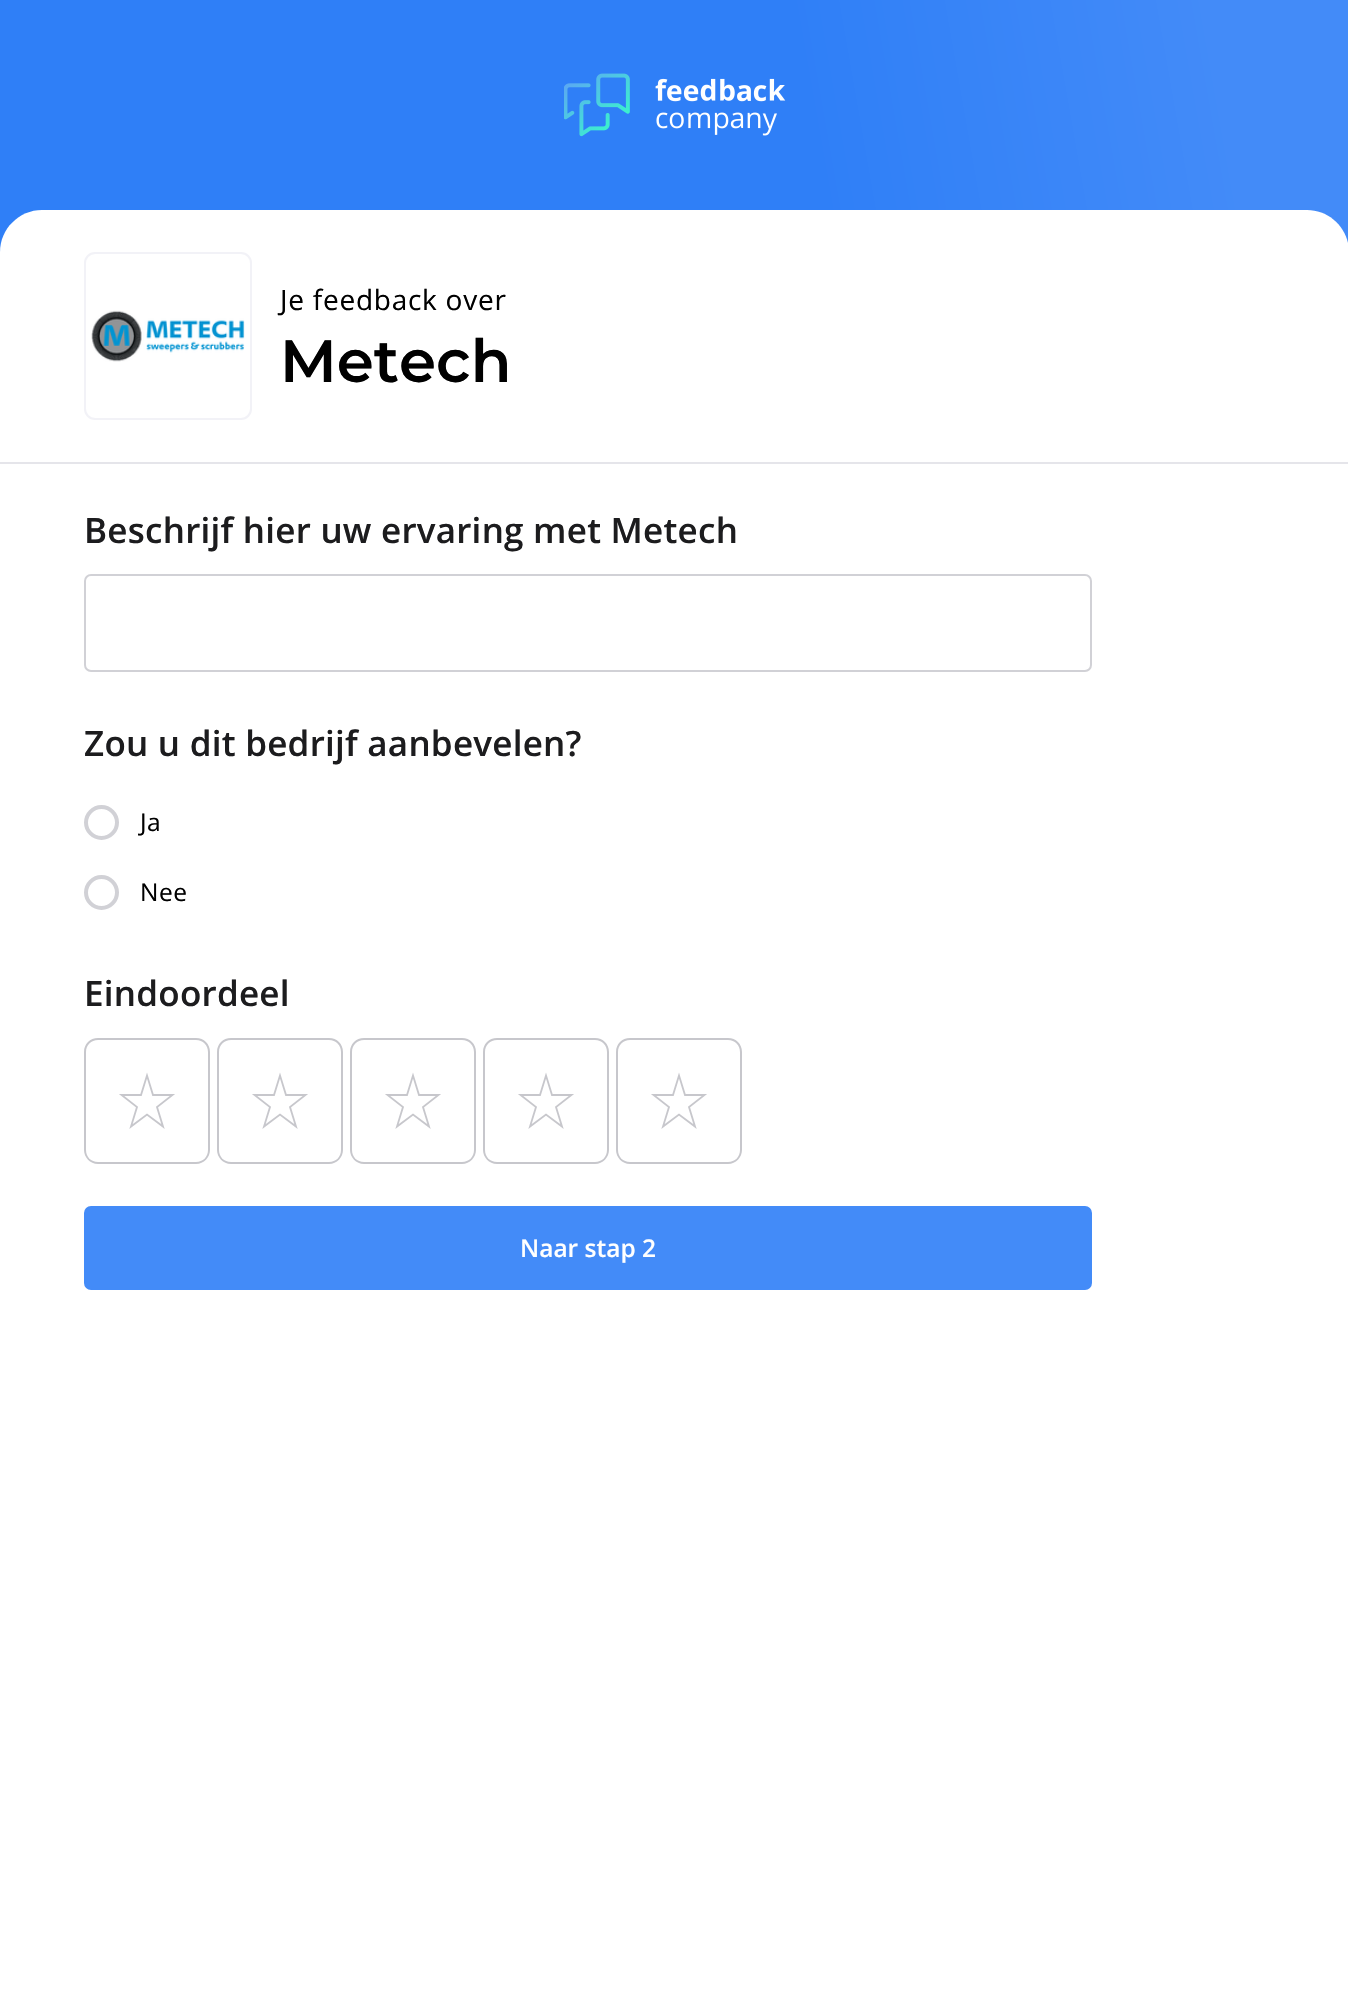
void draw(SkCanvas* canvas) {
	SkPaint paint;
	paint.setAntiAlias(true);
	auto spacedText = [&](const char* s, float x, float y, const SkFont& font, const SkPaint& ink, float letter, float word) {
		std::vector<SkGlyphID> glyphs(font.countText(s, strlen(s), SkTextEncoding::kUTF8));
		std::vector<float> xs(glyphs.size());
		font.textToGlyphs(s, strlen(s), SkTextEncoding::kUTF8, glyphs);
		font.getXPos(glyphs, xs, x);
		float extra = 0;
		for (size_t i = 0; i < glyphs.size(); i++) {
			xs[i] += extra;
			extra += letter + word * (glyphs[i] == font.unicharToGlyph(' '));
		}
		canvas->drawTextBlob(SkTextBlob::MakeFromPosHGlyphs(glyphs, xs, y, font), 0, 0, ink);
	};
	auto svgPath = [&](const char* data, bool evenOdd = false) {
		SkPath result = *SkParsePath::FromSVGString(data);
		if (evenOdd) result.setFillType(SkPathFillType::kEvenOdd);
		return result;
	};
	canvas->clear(0xffffffff);
	{
		const SkColor colors[] = {0xff438bf8, 0xff2f7ff7};
		const float stops[] = {0.1, 0.4};
		const SkPoint ends[] = {{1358, 48}, {-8, 288}};
		paint.setShader(SkGradientShader::MakeLinear(ends, colors, stops, 2, SkTileMode::kClamp));
		paint.setAlpha(255);
	}
	canvas->drawRect(SkRect::MakeXYWH(0, 0, 1348, 252), paint);
	canvas->drawImageRect(SkImages::DeferredFromEncodedData(SkData::MakeFromFileName("img1.png")), SkRect::MakeXYWH(564, 73, 222, 64), SkSamplingOptions());
	paint.setShader(nullptr);
	paint.setColor(0xffffffff);
	canvas->drawPath(svgPath("M42 210H1307C1330 210 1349 229 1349 252V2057H0V252C0 229 19 210 42 210Z"), paint);
	paint.setStroke(true);
	paint.setStrokeWidth(2);
	paint.setColor(0xfff2f2f7);
	canvas->drawRoundRect(SkRect::MakeXYWH(85, 253, 166, 166), 10, 10, paint);
	canvas->drawImageRect(SkImages::DeferredFromEncodedData(SkData::MakeFromFileName("img2.png")), SkRect::MakeXYWH(91, 310, 154, 52), SkSamplingOptions());
	SkFont f1(fontMgr->matchFamilyStyle("Open Sans", SkFontStyle::Normal()), 28);
	f1.setSubpixel(true);
	paint.setStroke(false);
	paint.setColor(0xff000000);
	spacedText("Je feedback over", 280, 310, f1, paint, 0.75, 0);
	SkFont f2(fontMgr->matchFamilyStyle("Montserrat", SkFontStyle(600, SkFontStyle::kNormal_Width, SkFontStyle::kUpright_Slant)), 59.5);
	f2.setSubpixel(true);
	canvas->drawString("Metech", 280, 382, f2, paint);
	paint.setColor(0xffe5e5ea);
	canvas->drawRect(SkRect::MakeXYWH(0, 462, 1348, 2), paint);
	SkFont f3(fontMgr->matchFamilyStyle("Open Sans", SkFontStyle(600, SkFontStyle::kNormal_Width, SkFontStyle::kUpright_Slant)), 35);
	f3.setSubpixel(true);
	paint.setColor(0xff1c1c1e);
	spacedText("Beschrijf hier uw ervaring met Metech", 84, 543, f3, paint, 0.25, 0);
	paint.setStroke(true);
	paint.setColor(0xffd1d1d6);
	canvas->drawRoundRect(SkRect::MakeXYWH(85, 575, 1006, 96), 6, 6, paint);
	paint.setStroke(false);
	paint.setColor(0xff1c1c1e);
	spacedText("Zou u dit bedrijf aanbevelen?", 84, 756, f3, paint, 0.25, 0);
	paint.setStroke(true);
	paint.setStrokeWidth(4);
	paint.setColor(0xffd1d1d6);
	canvas->drawCircle(101.5, 822.5, 15.5, paint);
	SkFont f4(fontMgr->matchFamilyStyle("Open Sans", SkFontStyle::Normal()), 24.5);
	f4.setSubpixel(true);
	paint.setStroke(false);
	paint.setColor(0xff000000);
	spacedText("Ja", 140, 831, f4, paint, 0.5, 0);
	paint.setStroke(true);
	paint.setColor(0xffd1d1d6);
	canvas->drawCircle(101.5, 892.5, 15.5, paint);
	paint.setStroke(false);
	paint.setColor(0xff000000);
	spacedText("Nee", 140, 901, f4, paint, 0.5, 0);
	paint.setColor(0xff1c1c1e);
	spacedText("Eindoordeel", 84, 1006, f3, paint, 0.25, 0);
	paint.setColor(0xffc7c7cc);
	canvas->drawPath(svgPath("M98 1038H147V1164H98C90 1164 84 1157 84 1150V1052C84 1044 90 1038 98 1038ZM98 1040H147V1162H98C91 1162 86 1157 86 1150V1052C86 1045 91 1040 98 1040Z", true), paint);
	canvas->drawPath(svgPath("M147 1038H196C204 1038 210 1044 210 1052V1150C210 1157 204 1164 196 1164H147ZM147 1040H196C203 1040 208 1045 208 1052V1150C208 1157 203 1162 196 1162H147Z", true), paint);
	paint.setStroke(true);
	paint.setStrokeWidth(1.8);
	canvas->drawPath(svgPath("M163 1126.5L157 1107L172.5 1095H153L147 1075.5L141 1095H121.5L137 1107L131 1126.5L147 1114.5Z"), paint);
	paint.setStroke(false);
	canvas->drawPath(svgPath("M231 1038H280V1164H231C223 1164 217 1157 217 1150V1052C217 1044 223 1038 231 1038ZM231 1040H280V1162H231C224 1162 219 1157 219 1150V1052C219 1045 224 1040 231 1040Z", true), paint);
	canvas->drawPath(svgPath("M280 1038H329C337 1038 343 1044 343 1052V1150C343 1157 337 1164 329 1164H280ZM280 1040H329C336 1040 341 1045 341 1052V1150C341 1157 336 1162 329 1162H280Z", true), paint);
	paint.setStroke(true);
	canvas->drawPath(svgPath("M296 1126.5L290 1107L305.5 1095H286L280 1075.5L274 1095H254.5L270 1107L264 1126.5L280 1114.5Z"), paint);
	paint.setStroke(false);
	canvas->drawPath(svgPath("M364 1038H413V1164H364C356 1164 350 1157 350 1150V1052C350 1044 356 1038 364 1038ZM364 1040H413V1162H364C357 1162 352 1157 352 1150V1052C352 1045 357 1040 364 1040Z", true), paint);
	canvas->drawPath(svgPath("M413 1038H462C470 1038 476 1044 476 1052V1150C476 1157 470 1164 462 1164H413ZM413 1040H462C469 1040 474 1045 474 1052V1150C474 1157 469 1162 462 1162H413Z", true), paint);
	paint.setStroke(true);
	canvas->drawPath(svgPath("M429 1126.5L423 1107L438.5 1095H419L413 1075.5L407 1095H387.5L403 1107L397 1126.5L413 1114.5Z"), paint);
	paint.setStroke(false);
	canvas->drawPath(svgPath("M497 1038H546V1164H497C489 1164 483 1157 483 1150V1052C483 1044 489 1038 497 1038ZM497 1040H546V1162H497C490 1162 485 1157 485 1150V1052C485 1045 490 1040 497 1040Z", true), paint);
	canvas->drawPath(svgPath("M546 1038H595C603 1038 609 1044 609 1052V1150C609 1157 603 1164 595 1164H546ZM546 1040H595C602 1040 607 1045 607 1052V1150C607 1157 602 1162 595 1162H546Z", true), paint);
	paint.setStroke(true);
	canvas->drawPath(svgPath("M562 1126.5L556 1107L571.5 1095H552L546 1075.5L540 1095H520.5L536 1107L530 1126.5L546 1114.5Z"), paint);
	paint.setStroke(false);
	canvas->drawPath(svgPath("M630 1038H679V1164H630C622 1164 616 1157 616 1150V1052C616 1044 622 1038 630 1038ZM630 1040H679V1162H630C623 1162 618 1157 618 1150V1052C618 1045 623 1040 630 1040Z", true), paint);
	canvas->drawPath(svgPath("M679 1038H728C736 1038 742 1044 742 1052V1150C742 1157 736 1164 728 1164H679ZM679 1040H728C735 1040 740 1045 740 1052V1150C740 1157 735 1162 728 1162H679Z", true), paint);
	paint.setStroke(true);
	canvas->drawPath(svgPath("M695 1126.5L689 1107L704.5 1095H685L679 1075.5L673 1095H653.5L669 1107L663 1126.5L679 1114.5Z"), paint);
	paint.setStroke(false);
	paint.setColor(0xff438bf8);
	canvas->drawRoundRect(SkRect::MakeXYWH(85, 1207, 1006, 82), 6, 6, paint);
	paint.setStroke(true);
	paint.setStrokeWidth(2);
	canvas->drawRoundRect(SkRect::MakeXYWH(85, 1207, 1006, 82), 6, 6, paint);
	SkFont f5(fontMgr->matchFamilyStyle("Open Sans", SkFontStyle(600, SkFontStyle::kNormal_Width, SkFontStyle::kUpright_Slant)), 24.5);
	f5.setSubpixel(true);
	paint.setStroke(false);
	paint.setColor(0xffffffff);
	canvas->drawString("Naar stap 2", 520, 1257, f5, paint);
}
